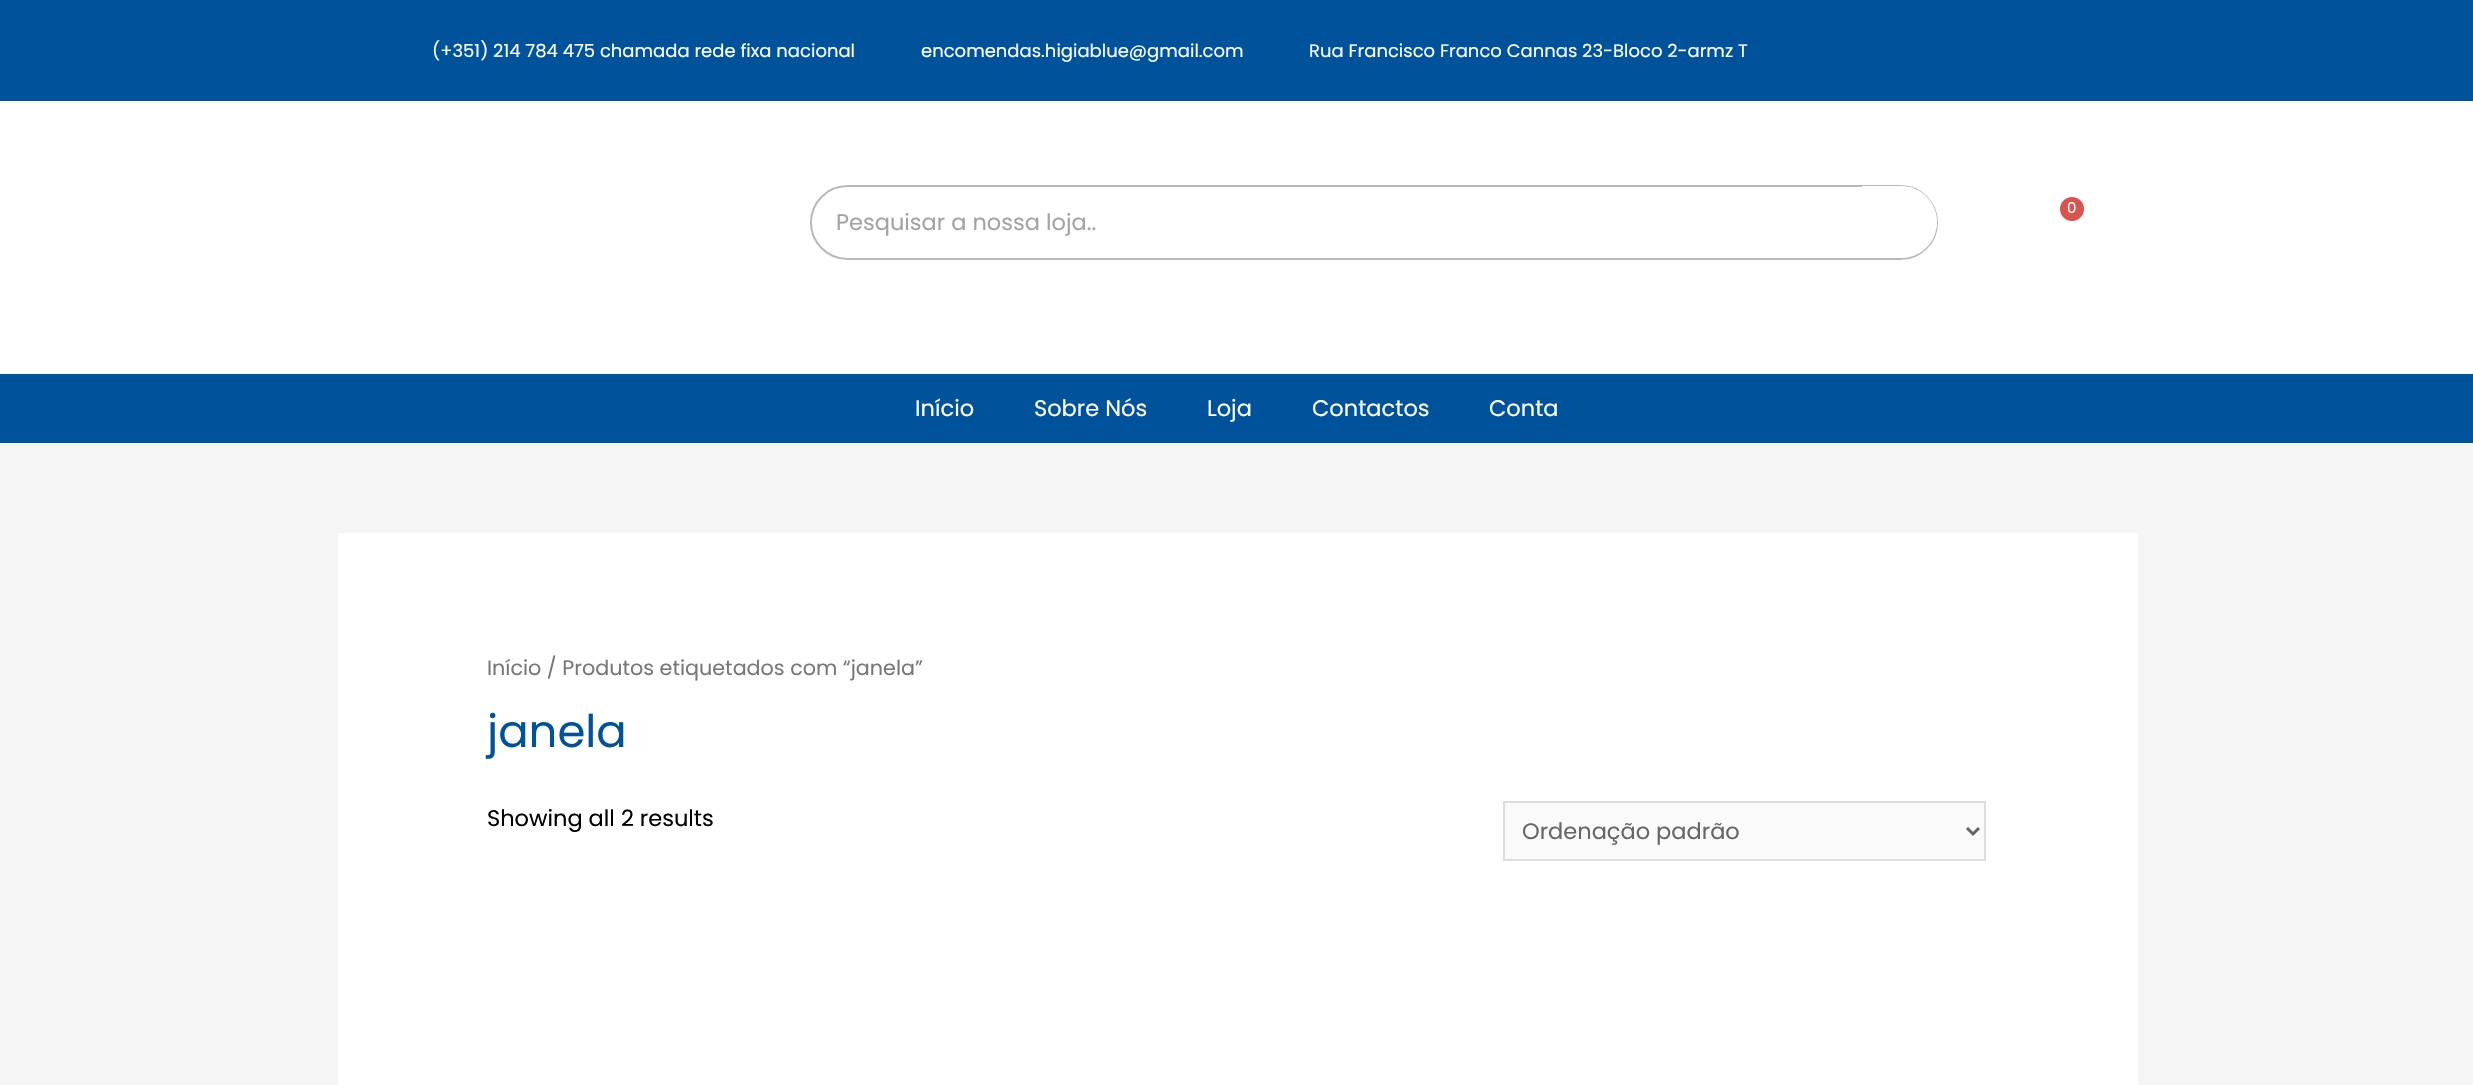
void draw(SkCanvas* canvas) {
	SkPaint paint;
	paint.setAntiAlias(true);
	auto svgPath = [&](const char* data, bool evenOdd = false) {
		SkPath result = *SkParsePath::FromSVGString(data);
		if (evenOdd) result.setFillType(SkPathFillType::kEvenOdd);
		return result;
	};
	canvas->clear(0xfff5f5f5);
	paint.setColor(0xff00539b);
	canvas->drawRect(SkRect::MakeXYWH(0, 0, 2473, 101), paint);
	SkFont f1(fontMgr->matchFamilyStyle("Poppins", SkFontStyle::Normal()), 18);
	f1.setSubpixel(true);
	paint.setColor(0xffffffff);
	canvas->drawString("(+351) 214 784 475 chamada rede fixa nacional", 432, 57, f1, paint);
	canvas->drawString("encomendas.higiablue@gmail.com", 921, 57, f1, paint);
	canvas->drawString("Rua Francisco Franco Cannas 23-Bloco 2-armz T", 1309, 57, f1, paint);
	canvas->drawRect(SkRect::MakeXYWH(0, 101, 2473, 273), paint);
	paint.setColor(0xffd9534f);
	canvas->drawCircle(2072, 209, 12, paint);
	SkFont f2(fontMgr->matchFamilyStyle("Poppins", SkFontStyle::Normal()), 15);
	f2.setSubpixel(true);
	paint.setColor(0xffffffff);
	canvas->drawString("0", 2067, 213, f2, paint);
	paint.setStroke(true);
	paint.setStrokeWidth(2);
	paint.setColor(0xffb8b8b8);
	canvas->drawRoundRect(SkRect::MakeXYWH(811, 186, 1126, 73), 36.5, 36.5, paint);
	SkFont f3(fontMgr->matchFamilyStyle("Poppins", SkFontStyle::Normal()), 22.5);
	f3.setSubpixel(true);
	paint.setStroke(false);
	paint.setColor(0xffa3a3a3);
	canvas->drawString("Pesquisar a nossa loja..", 836, 230, f3, paint);
	paint.setColor(0xffffffff);
	canvas->drawPath(svgPath("M1862 186H1901C1921 186 1937 202 1937 222C1937 242 1921 258 1901 258H1862Z"), paint);
	paint.setColor(0xff00539b);
	canvas->drawRect(SkRect::MakeXYWH(0, 374, 2473, 69), paint);
	paint.setColor(0xffffffff);
	canvas->drawString("Início", 915, 416, f3, paint);
	canvas->drawString("Sobre Nós", 1034, 416, f3, paint);
	canvas->drawString("Loja", 1207, 416, f3, paint);
	canvas->drawString("Contactos", 1312, 416, f3, paint);
	canvas->drawString("Conta", 1489, 416, f3, paint);
	canvas->drawRect(SkRect::MakeXYWH(338, 533, 1800, 552), paint);
	SkFont f4(fontMgr->matchFamilyStyle("Poppins", SkFontStyle::Normal()), 20.7);
	f4.setSubpixel(true);
	paint.setColor(0xff777777);
	canvas->drawString("Início / Produtos etiquetados com “janela”", 487, 675, f4, paint);
	SkFont f5(fontMgr->matchFamilyStyle("Poppins", SkFontStyle::Normal()), 45);
	f5.setSubpixel(true);
	paint.setColor(0xff00539b);
	canvas->drawString("janela", 487, 747, f5, paint);
	paint.setColor(0xff000000);
	canvas->drawString("Showing all 2 results", 487, 826, f3, paint);
	paint.setColor(0xfffafafa);
	canvas->drawRect(SkRect::MakeXYWH(1504, 802, 481, 58), paint);
	paint.setStroke(true);
	paint.setColor(0xffdddddd);
	canvas->drawRect(SkRect::MakeXYWH(1504, 802, 481, 58), paint);
	paint.setStrokeWidth(3);
	paint.setColor(0xff666666);
	canvas->drawPath(svgPath("M1967 828L1973 834L1979 828"), paint);
	paint.setStroke(false);
	canvas->drawString("Ordenação padrão", 1522, 839, f3, paint);
}
